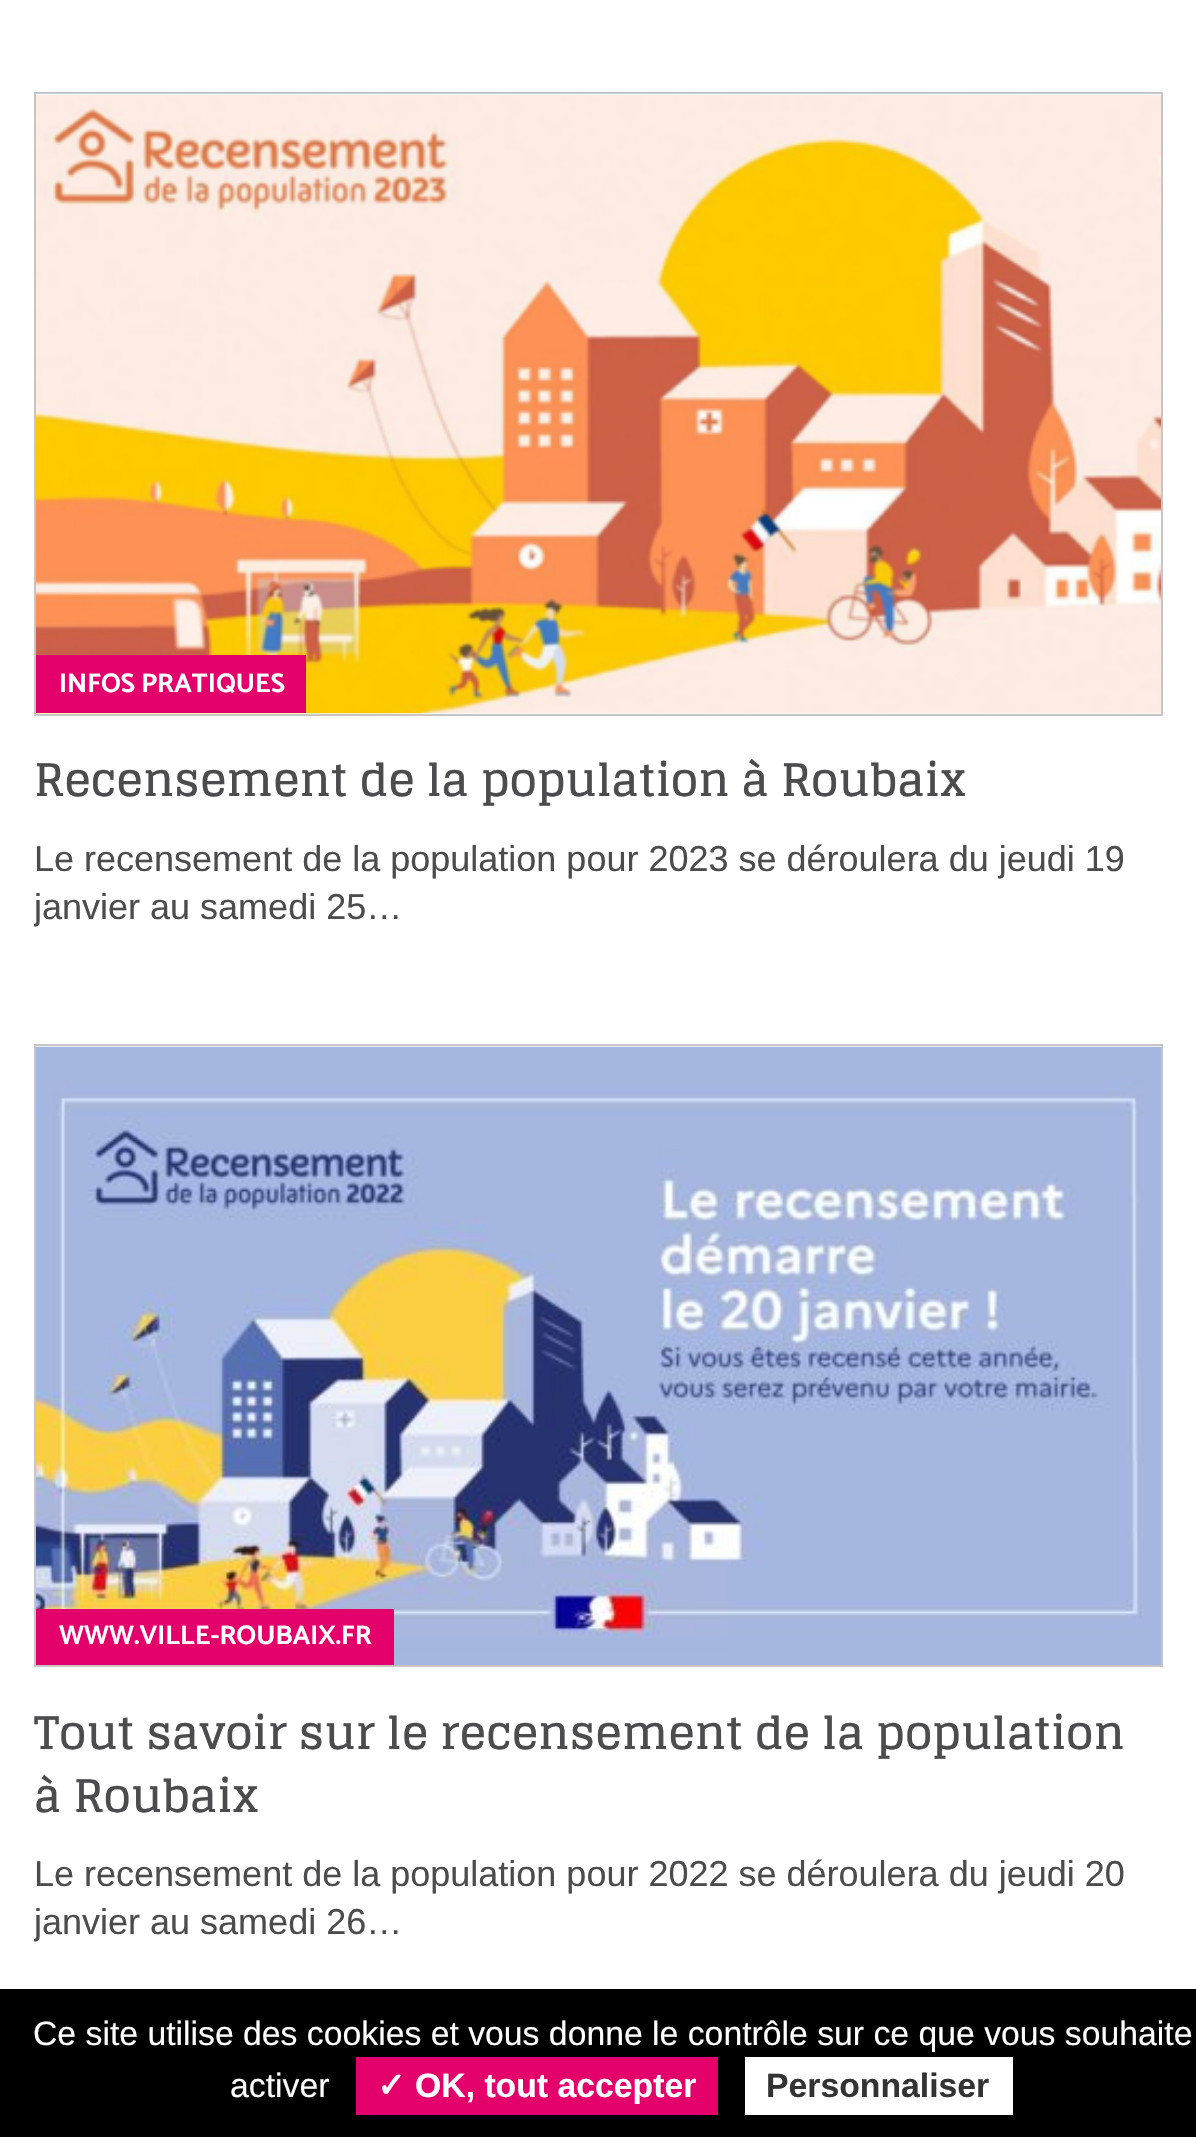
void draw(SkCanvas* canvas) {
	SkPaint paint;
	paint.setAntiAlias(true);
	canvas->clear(0xffffffff);
	paint.setStroke(true);
	paint.setStrokeWidth(2);
	paint.setColor(0xffc7c5c8);
	canvas->drawRect(SkRect::MakeXYWH(35, 93, 1127, 622), paint);
	canvas->drawImageRect(SkImages::DeferredFromEncodedData(SkData::MakeFromFileName("img1.png")), SkRect::MakeXYWH(36, 95, 1125, 619), SkSamplingOptions());
	paint.setStroke(false);
	paint.setColor(0xffe3006a);
	canvas->drawRect(SkRect::MakeXYWH(36, 655, 270, 58), paint);
	SkFont f1(fontMgr->matchFamilyStyle("Catamaran", SkFontStyle(100, SkFontStyle::kNormal_Width, SkFontStyle::kUpright_Slant)), 27);
	f1.setSubpixel(true);
	paint.setColor(0xffffffff);
	canvas->drawString("INFOS PRATIQUES", 59, 692, f1, paint);
	SkFont f2(fontMgr->matchFamilyStyle("Glegoo", SkFontStyle::Bold()), 45);
	f2.setSubpixel(true);
	paint.setColor(0xff4c4b4d);
	canvas->drawString("Recensement de la population à Roubaix", 34, 796, f2, paint);
	SkFont f3(fontMgr->matchFamilyStyle("Liberation Sans", SkFontStyle::Normal()), 36);
	f3.setSubpixel(true);
	canvas->drawString("Le recensement de la population pour 2023 se déroulera du jeudi 19", 34, 871, f3, paint);
	canvas->save();
	canvas->clipRect(SkRect::MakeXYWH(34, 92, 1129, 840));
	canvas->drawString("janvier au samedi 25…", 34, 919, f3, paint);
	canvas->restore();
	paint.setStroke(true);
	paint.setColor(0xffc7c5c8);
	canvas->drawRect(SkRect::MakeXYWH(35, 1045, 1127, 621), paint);
	canvas->drawImageRect(SkImages::DeferredFromEncodedData(SkData::MakeFromFileName("img2.png")), SkRect::MakeXYWH(36, 1046, 1125, 619), SkSamplingOptions());
	paint.setStroke(false);
	paint.setColor(0xffe3006a);
	canvas->drawRect(SkRect::MakeXYWH(36, 1609, 358, 56), paint);
	paint.setColor(0xffffffff);
	canvas->drawString("WWW.VILLE-ROUBAIX.FR", 59, 1644, f1, paint);
	paint.setColor(0xff4c4b4d);
	canvas->drawString("Tout savoir sur le recensement de la population", 34, 1749, f2, paint);
	canvas->drawString("à Roubaix", 34, 1812, f2, paint);
	canvas->drawString("Le recensement de la population pour 2022 se déroulera du jeudi 20", 34, 1886, f3, paint);
	canvas->save();
	canvas->clipRect(SkRect::MakeXYWH(34, 1044, 1129, 902));
	canvas->drawString("janvier au samedi 26…", 34, 1934, f3, paint);
	canvas->restore();
	paint.setColor(0xff000000);
	canvas->drawRect(SkRect::MakeXYWH(0, 1989, 1196, 148), paint);
	SkFont f4(fontMgr->matchFamilyStyle("Liberation Sans", SkFontStyle::Normal()), 33.75);
	f4.setSubpixel(true);
	paint.setColor(0xffffffff);
	canvas->drawString("Ce site utilise des cookies et vous donne le contrôle sur ce que vous souhaite", 33, 2045, f4, paint);
	canvas->drawString("activer", 230, 2097, f4, paint);
	paint.setColor(0xffe3006a);
	canvas->drawRect(SkRect::MakeXYWH(356, 2057, 362, 58), paint);
	SkFont f5(fontMgr->matchFamilyStyle("DejaVu Sans", SkFontStyle::Bold()), 33.75);
	f5.setSubpixel(true);
	paint.setColor(0xffffffff);
	canvas->drawString("✓", 377, 2097, f5, paint);
	SkFont f6(fontMgr->matchFamilyStyle("Liberation Sans", SkFontStyle::Bold()), 33.75);
	f6.setSubpixel(true);
	canvas->drawString("OK, tout accepter", 415, 2097, f6, paint);
	canvas->drawRect(SkRect::MakeXYWH(745, 2057, 268, 58), paint);
	paint.setColor(0xff333333);
	canvas->drawString("Personnaliser", 766, 2097, f6, paint);
}
